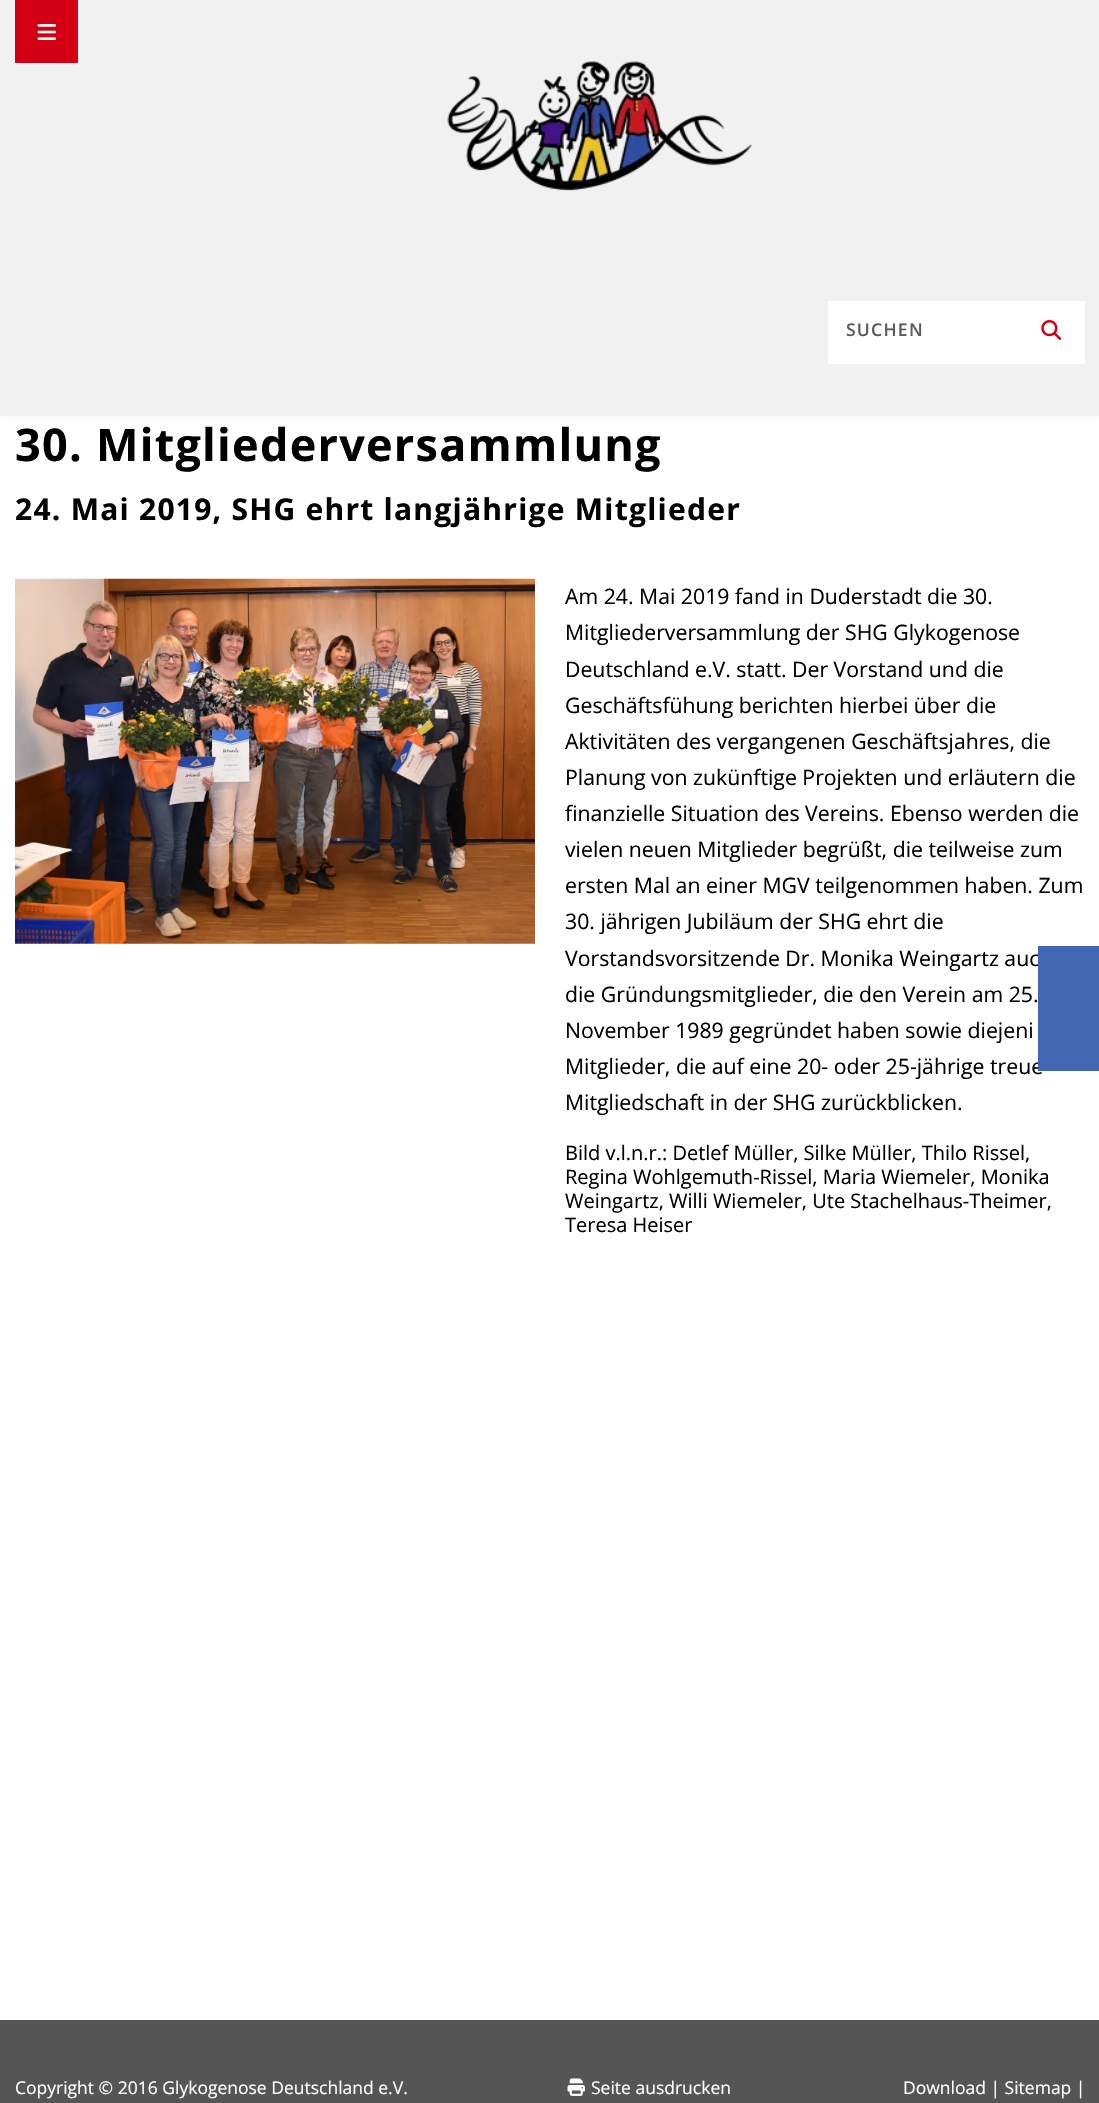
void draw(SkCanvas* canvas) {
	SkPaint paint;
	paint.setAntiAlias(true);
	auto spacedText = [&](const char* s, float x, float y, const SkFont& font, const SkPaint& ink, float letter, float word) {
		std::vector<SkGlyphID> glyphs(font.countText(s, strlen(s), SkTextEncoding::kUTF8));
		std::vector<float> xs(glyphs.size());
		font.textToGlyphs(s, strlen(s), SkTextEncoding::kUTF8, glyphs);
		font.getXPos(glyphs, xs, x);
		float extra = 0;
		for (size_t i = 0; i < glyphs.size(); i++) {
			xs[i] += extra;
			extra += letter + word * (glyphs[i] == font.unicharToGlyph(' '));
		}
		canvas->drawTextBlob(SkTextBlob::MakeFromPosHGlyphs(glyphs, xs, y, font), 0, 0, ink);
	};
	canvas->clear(0xff555555);
	paint.setColor(0xffffffff);
	canvas->drawRect(SkRect::MakeXYWH(0, 416, 1099, 1604), paint);
	paint.setColor(0xfff1f1f1);
	paint.setMaskFilter(SkMaskFilter::MakeBlur(kNormal_SkBlurStyle, 6));
	canvas->drawRect(SkRect::MakeXYWH(0, -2, 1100, 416), paint);
	paint.setMaskFilter(nullptr);
	canvas->drawRect(SkRect::MakeXYWH(0, 0, 1099, 416), paint);
	paint.setColor(0xffd30014);
	canvas->drawRect(SkRect::MakeXYWH(15, 0, 63, 63), paint);
	canvas->drawImageRect(SkImages::DeferredFromEncodedData(SkData::MakeFromFileName("img1.png")), SkRect::MakeXYWH(37, 24, 20, 16), SkSamplingOptions());
	canvas->drawImageRect(SkImages::DeferredFromEncodedData(SkData::MakeFromFileName("img2.png")), SkRect::MakeXYWH(447, 61, 306, 130), SkSamplingOptions());
	paint.setColor(0xffffffff);
	canvas->drawRect(SkRect::MakeXYWH(828, 301, 257, 63), paint);
	SkFont f1(fontMgr->matchFamilyStyle("Open Sans", SkFontStyle(600, SkFontStyle::kNormal_Width, SkFontStyle::kUpright_Slant)), 17.5);
	f1.setSubpixel(true);
	paint.setColor(0xff595c5f);
	spacedText("SUCHEN", 846, 336, f1, paint, 1.25, 0);
	canvas->drawImageRect(SkImages::DeferredFromEncodedData(SkData::MakeFromFileName("img3.png")), SkRect::MakeXYWH(1041, 320, 21, 20), SkSamplingOptions());
	SkFont f2(fontMgr->matchFamilyStyle("Open Sans", SkFontStyle::Bold()), 45);
	f2.setSubpixel(true);
	paint.setColor(0xff000000);
	spacedText("30. Mitgliederversammlung", 15, 461, f2, paint, 1.25, 0);
	SkFont f3(fontMgr->matchFamilyStyle("Open Sans", SkFontStyle::Bold()), 30);
	f3.setSubpixel(true);
	spacedText("24. Mai 2019, SHG ehrt langjährige Mitglieder", 15, 520, f3, paint, 1.25, 0);
	canvas->drawImageRect(SkImages::DeferredFromEncodedData(SkData::MakeFromFileName("img4.png")), SkRect::MakeXYWH(15, 578, 520, 366), SkSamplingOptions());
	SkFont f4(fontMgr->matchFamilyStyle("Open Sans", SkFontStyle::Normal()), 21.25);
	f4.setSubpixel(true);
	canvas->drawString("Am 24. Mai 2019 fand in Duderstadt die 30.", 565, 604, f4, paint);
	canvas->drawString("Mitgliederversammlung der SHG Glykogenose", 565, 640, f4, paint);
	canvas->drawString("Deutschland e.V. statt. Der Vorstand und die", 565, 677, f4, paint);
	canvas->drawString("Geschäftsfühung berichten hierbei über die", 565, 713, f4, paint);
	canvas->drawString("Aktivitäten des vergangenen Geschäftsjahres, die", 565, 749, f4, paint);
	canvas->drawString("Planung von zukünftige Projekten und erläutern die", 565, 785, f4, paint);
	canvas->drawString("finanzielle Situation des Vereins. Ebenso werden die", 565, 821, f4, paint);
	canvas->drawString("vielen neuen Mitglieder begrüßt, die teilweise zum", 565, 857, f4, paint);
	canvas->drawString("ersten Mal an einer MGV teilgenommen haben. Zum", 565, 893, f4, paint);
	canvas->drawString("30. jährigen Jubiläum der SHG ehrt die", 565, 929, f4, paint);
	canvas->drawString("Vorstandsvorsitzende Dr. Monika Weingartz auc", 565, 966, f4, paint);
	canvas->drawString("die Gründungsmitglieder, die den Verein am 25.", 565, 1002, f4, paint);
	canvas->drawString("November 1989 gegründet haben sowie diejeni", 565, 1038, f4, paint);
	canvas->drawString("Mitglieder, die auf eine 20- oder 25-jährige treue", 565, 1074, f4, paint);
	canvas->drawString("Mitgliedschaft in der SHG zurückblicken.", 565, 1110, f4, paint);
	SkFont f5(fontMgr->matchFamilyStyle("Open Sans", SkFontStyle::Normal()), 20);
	f5.setSubpixel(true);
	canvas->drawString("Bild v.l.n.r.: Detlef Müller, Silke Müller, Thilo Rissel,", 565, 1160, f5, paint);
	canvas->drawString("Regina Wohlgemuth-Rissel, Maria Wiemeler, Monika", 565, 1184, f5, paint);
	canvas->drawString("Weingartz, Willi Wiemeler, Ute Stachelhaus-Theimer,", 565, 1208, f5, paint);
	canvas->drawString("Teresa Heiser", 565, 1232, f5, paint);
	paint.setColor(0xff4267b2);
	canvas->drawRect(SkRect::MakeXYWH(1038, 946, 61, 125), paint);
	SkFont f6(fontMgr->matchFamilyStyle("Open Sans", SkFontStyle::Normal()), 17.5);
	f6.setSubpixel(true);
	paint.setColor(0xffffffff);
	canvas->drawString("Copyright © 2016 Glykogenose Deutschland e.V.", 15, 2094, f6, paint);
	canvas->drawImageRect(SkImages::DeferredFromEncodedData(SkData::MakeFromFileName("img5.png")), SkRect::MakeXYWH(567, 2078, 18, 18), SkSamplingOptions());
	canvas->drawString("Seite ausdrucken", 591, 2094, f6, paint);
	canvas->drawString("Download | Sitemap |", 903, 2094, f6, paint);
}
